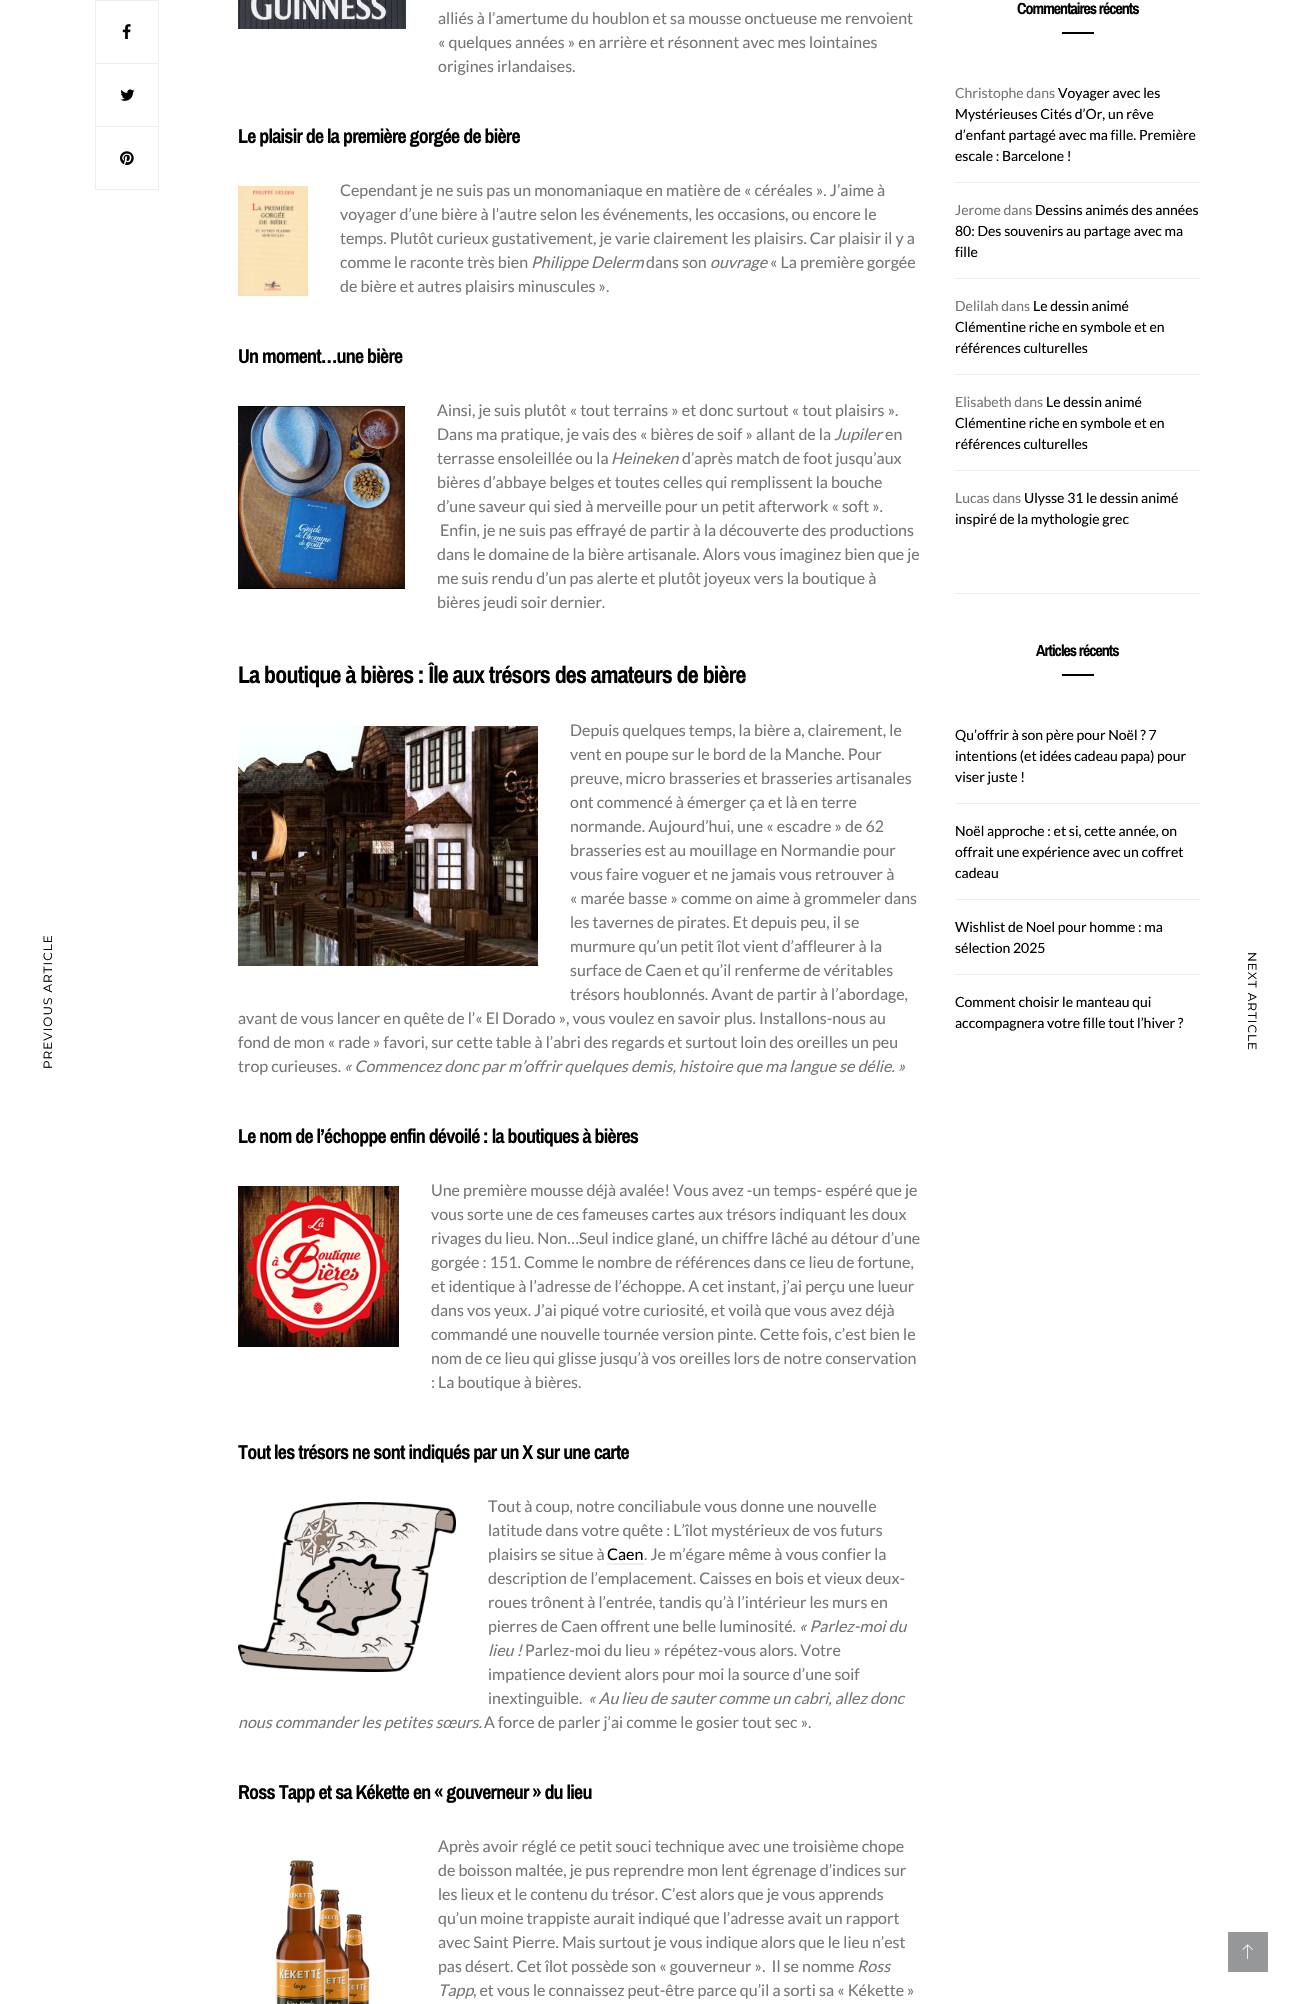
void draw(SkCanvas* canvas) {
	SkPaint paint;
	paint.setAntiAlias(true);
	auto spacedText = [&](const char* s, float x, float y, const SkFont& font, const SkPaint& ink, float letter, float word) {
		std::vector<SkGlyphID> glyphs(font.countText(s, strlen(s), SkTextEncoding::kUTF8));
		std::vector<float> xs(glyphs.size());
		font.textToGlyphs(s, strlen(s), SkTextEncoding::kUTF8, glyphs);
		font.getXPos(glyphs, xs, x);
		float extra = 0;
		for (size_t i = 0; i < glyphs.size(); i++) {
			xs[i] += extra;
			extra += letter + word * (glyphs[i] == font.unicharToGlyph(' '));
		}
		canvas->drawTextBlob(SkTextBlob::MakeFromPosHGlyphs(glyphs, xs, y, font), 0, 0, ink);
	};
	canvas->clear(0xffffffff);
	SkFont f1(fontMgr->matchFamilyStyle("Archivo Narrow", SkFontStyle::Bold()), 16);
	f1.setSubpixel(true);
	paint.setColor(0xff000000);
	spacedText("Commentaires récents", 1017, 14, f1, paint, -1, 0);
	canvas->drawRect(SkRect::MakeXYWH(1062, 32, 32, 2), paint);
	SkFont f2(fontMgr->matchFamilyStyle("Lato", SkFontStyle::Normal()), 14);
	f2.setSubpixel(true);
	paint.setColor(0xff777777);
	canvas->drawString("Christophe dans", 955, 98, f2, paint);
	paint.setColor(0xff000000);
	canvas->drawString("Voyager avec les", 1058, 98, f2, paint);
	canvas->drawString("Mystérieuses Cités d’Or, un rêve", 955, 119, f2, paint);
	canvas->drawString("d’enfant partagé avec ma fille. Première", 955, 140, f2, paint);
	canvas->drawString("escale : Barcelone !", 955, 161, f2, paint);
	paint.setColor(0xffeceeef);
	canvas->drawRect(SkRect::MakeXYWH(955, 182, 245, 1), paint);
	paint.setColor(0xff777777);
	canvas->drawString("Jerome dans", 955, 215, f2, paint);
	paint.setColor(0xff000000);
	canvas->drawString("Dessins animés des années", 1035, 215, f2, paint);
	canvas->drawString("80: Des souvenirs au partage avec ma", 955, 236, f2, paint);
	canvas->drawString("fille", 955, 257, f2, paint);
	paint.setColor(0xffeceeef);
	canvas->drawRect(SkRect::MakeXYWH(955, 278, 245, 1), paint);
	paint.setColor(0xff777777);
	canvas->drawString("Delilah dans", 955, 311, f2, paint);
	paint.setColor(0xff000000);
	canvas->drawString("Le dessin animé", 1033, 311, f2, paint);
	canvas->drawString("Clémentine riche en symbole et en", 955, 332, f2, paint);
	canvas->drawString("références culturelles", 955, 353, f2, paint);
	paint.setColor(0xffeceeef);
	canvas->drawRect(SkRect::MakeXYWH(955, 374, 245, 1), paint);
	paint.setColor(0xff777777);
	canvas->drawString("Elisabeth dans", 955, 407, f2, paint);
	paint.setColor(0xff000000);
	canvas->drawString("Le dessin animé", 1046, 407, f2, paint);
	canvas->drawString("Clémentine riche en symbole et en", 955, 428, f2, paint);
	canvas->drawString("références culturelles", 955, 449, f2, paint);
	paint.setColor(0xffeceeef);
	canvas->drawRect(SkRect::MakeXYWH(955, 470, 245, 1), paint);
	paint.setColor(0xff777777);
	canvas->drawString("Lucas dans", 955, 503, f2, paint);
	paint.setColor(0xff000000);
	canvas->drawString("Ulysse 31 le dessin animé", 1024, 503, f2, paint);
	canvas->drawString("inspiré de la mythologie grec", 955, 524, f2, paint);
	paint.setColor(0xffeceeef);
	canvas->drawRect(SkRect::MakeXYWH(955, 593, 245, 1), paint);
	paint.setColor(0xff000000);
	spacedText("Articles récents", 1036, 656, f1, paint, -1, 0);
	canvas->drawRect(SkRect::MakeXYWH(1062, 674, 32, 2), paint);
	canvas->drawString("Qu’offrir à son père pour Noël ? 7", 955, 740, f2, paint);
	canvas->drawString("intentions (et idées cadeau papa) pour", 955, 761, f2, paint);
	canvas->drawString("viser juste !", 955, 782, f2, paint);
	paint.setColor(0xffeceeef);
	canvas->drawRect(SkRect::MakeXYWH(955, 803, 245, 1), paint);
	paint.setColor(0xff000000);
	canvas->drawString("Noël approche : et si, cette année, on", 955, 836, f2, paint);
	canvas->drawString("offrait une expérience avec un coffret", 955, 857, f2, paint);
	canvas->drawString("cadeau", 955, 878, f2, paint);
	paint.setColor(0xffeceeef);
	canvas->drawRect(SkRect::MakeXYWH(955, 899, 245, 1), paint);
	paint.setColor(0xff000000);
	canvas->drawString("Wishlist de Noel pour homme : ma", 955, 932, f2, paint);
	canvas->drawString("sélection 2025", 955, 953, f2, paint);
	paint.setColor(0xffeceeef);
	canvas->drawRect(SkRect::MakeXYWH(955, 974, 245, 1), paint);
	paint.setColor(0xff000000);
	canvas->drawString("Comment choisir le manteau qui", 955, 1007, f2, paint);
	canvas->drawString("accompagnera votre fille tout l’hiver ?", 955, 1028, f2, paint);
	paint.setStroke(true);
	paint.setStrokeWidth(1);
	paint.setColor(0xffeceeef);
	canvas->drawRect(SkRect::MakeXYWH(95.5, 0.5, 63, 63), paint);
	canvas->drawImageRect(SkImages::DeferredFromEncodedData(SkData::MakeFromFileName("img1.png")), SkRect::MakeXYWH(122, 24, 9, 15), SkSamplingOptions());
	canvas->drawRect(SkRect::MakeXYWH(95.5, 63.5, 63, 63), paint);
	canvas->drawImageRect(SkImages::DeferredFromEncodedData(SkData::MakeFromFileName("img2.png")), SkRect::MakeXYWH(120, 89, 15, 12), SkSamplingOptions());
	canvas->drawRect(SkRect::MakeXYWH(95.5, 126.5, 63, 63), paint);
	canvas->drawImageRect(SkImages::DeferredFromEncodedData(SkData::MakeFromFileName("img3.png")), SkRect::MakeXYWH(120, 151, 14, 14), SkSamplingOptions());
	canvas->drawImageRect(SkImages::DeferredFromEncodedData(SkData::MakeFromFileName("img4.png")), SkRect::MakeXYWH(238, 0, 168, 29), SkSamplingOptions());
	SkFont f3(fontMgr->matchFamilyStyle("Lato", SkFontStyle::Normal()), 16);
	f3.setSubpixel(true);
	paint.setStroke(false);
	paint.setColor(0xff777777);
	canvas->drawString("alliés à l’amertume du houblon et sa mousse onctueuse me renvoient", 438, 24, f3, paint);
	canvas->drawString("« quelques années » en arrière et résonnent avec mes lointaines", 438, 48, f3, paint);
	canvas->drawString("origines irlandaises.", 438, 72, f3, paint);
	SkFont f4(fontMgr->matchFamilyStyle("Archivo Narrow", SkFontStyle::Bold()), 20);
	f4.setSubpixel(true);
	paint.setColor(0xff000000);
	spacedText("Le plaisir de la première gorgée de bière", 238, 143, f4, paint, -0.8, 0);
	canvas->drawImageRect(SkImages::DeferredFromEncodedData(SkData::MakeFromFileName("img5.png")), SkRect::MakeXYWH(238, 186, 70, 110), SkSamplingOptions());
	paint.setColor(0xff777777);
	canvas->drawString("Cependant je ne suis pas un monomaniaque en matière de « céréales ». J’aime à", 340, 196, f3, paint);
	canvas->drawString("voyager d’une bière à l’autre selon les événements, les occasions, ou encore le", 340, 220, f3, paint);
	canvas->drawString("temps. Plutôt curieux gustativement, je varie clairement les plaisirs. Car plaisir il y a", 340, 244, f3, paint);
	canvas->drawString("comme le raconte très bien", 340, 268, f3, paint);
	SkFont f5(fontMgr->matchFamilyStyle("Lato", SkFontStyle::Italic()), 16);
	f5.setSubpixel(true);
	canvas->drawString("Philippe Delerm", 531, 268, f5, paint);
	canvas->drawString("dans son", 646, 268, f3, paint);
	canvas->drawString("ouvrage", 710, 268, f5, paint);
	canvas->drawString("« La première gorgée", 770, 268, f3, paint);
	canvas->drawString("de bière et autres plaisirs minuscules ».", 340, 292, f3, paint);
	paint.setColor(0xff000000);
	spacedText("Un moment…une bière", 238, 363, f4, paint, -0.8, 0);
	canvas->drawImageRect(SkImages::DeferredFromEncodedData(SkData::MakeFromFileName("img6.png")), SkRect::MakeXYWH(238, 406, 167, 183), SkSamplingOptions());
	paint.setColor(0xff777777);
	canvas->drawString("Ainsi, je suis plutôt « tout terrains » et donc surtout « tout plaisirs ».", 437, 416, f3, paint);
	canvas->drawString("Dans ma pratique, je vais des « bières de soif » allant de la", 437, 440, f3, paint);
	canvas->drawString("Jupiler", 834, 440, f5, paint);
	canvas->drawString("en", 885, 440, f3, paint);
	canvas->drawString("terrasse ensoleillée ou la", 437, 464, f3, paint);
	canvas->drawString("Heineken", 611, 464, f5, paint);
	canvas->drawString("d’après match de foot jusqu’aux", 682, 464, f3, paint);
	canvas->drawString("bières d’abbaye belges et toutes celles qui remplissent la bouche", 437, 488, f3, paint);
	canvas->drawString("d’une saveur qui sied à merveille pour un petit afterwork « soft ».", 437, 512, f3, paint);
	canvas->drawString("Enfin, je ne suis pas effrayé de partir à la découverte des productions", 440, 536, f3, paint);
	canvas->drawString("dans le domaine de la bière artisanale. Alors vous imaginez bien que je", 437, 560, f3, paint);
	canvas->drawString("me suis rendu d’un pas alerte et plutôt joyeux vers la boutique à", 437, 584, f3, paint);
	canvas->drawString("bières jeudi soir dernier.", 437, 608, f3, paint);
	SkFont f6(fontMgr->matchFamilyStyle("Archivo Narrow", SkFontStyle::Bold()), 24);
	f6.setSubpixel(true);
	paint.setColor(0xff000000);
	spacedText("La boutique à bières : Île aux trésors des amateurs de bière", 238, 683, f6, paint, -0.8, 0);
	paint.setColor(0xff777777);
	canvas->drawString("Depuis quelques temps, la bière a, clairement, le", 570, 736, f3, paint);
	canvas->drawString("vent en poupe sur le bord de la Manche. Pour", 570, 760, f3, paint);
	canvas->drawString("preuve, micro brasseries et brasseries artisanales", 570, 784, f3, paint);
	canvas->drawString("ont commencé à émerger ça et là en terre", 570, 808, f3, paint);
	canvas->drawString("normande. Aujourd’hui, une « escadre » de 62", 570, 832, f3, paint);
	canvas->drawString("brasseries est au mouillage en Normandie pour", 570, 856, f3, paint);
	canvas->drawString("vous faire voguer et ne jamais vous retrouver à", 570, 880, f3, paint);
	canvas->drawString("« marée basse » comme on aime à grommeler dans", 570, 904, f3, paint);
	canvas->drawString("les tavernes de pirates. Et depuis peu, il se", 570, 928, f3, paint);
	canvas->drawString("murmure qu’un petit îlot vient d’affleurer à la", 570, 952, f3, paint);
	canvas->drawString("surface de Caen et qu’il renferme de véritables", 570, 976, f3, paint);
	canvas->drawString("trésors houblonnés. Avant de partir à l’abordage,", 570, 1000, f3, paint);
	canvas->drawString("avant de vous lancer en quête de l’« El Dorado », vous voulez en savoir plus. Installons-nous au", 238, 1024, f3, paint);
	canvas->drawString("fond de mon « rade » favori, sur cette table à l’abri des regards et surtout loin des oreilles un peu", 238, 1048, f3, paint);
	canvas->drawString("trop curieuses.", 238, 1072, f3, paint);
	canvas->drawString("« Commencez donc par m’offrir quelques demis, histoire que ma langue se délie. »", 344, 1072, f5, paint);
	canvas->drawImageRect(SkImages::DeferredFromEncodedData(SkData::MakeFromFileName("img7.png")), SkRect::MakeXYWH(238, 726, 300, 240), SkSamplingOptions());
	paint.setColor(0xff000000);
	spacedText("Le nom de l’échoppe enfin dévoilé : la boutiques à bières", 238, 1143, f4, paint, -0.8, 0);
	canvas->drawImageRect(SkImages::DeferredFromEncodedData(SkData::MakeFromFileName("img8.png")), SkRect::MakeXYWH(238, 1186, 161, 161), SkSamplingOptions());
	paint.setColor(0xff777777);
	canvas->drawString("Une première mousse déjà avalée! Vous avez -un temps- espéré que je", 431, 1196, f3, paint);
	canvas->drawString("vous sorte une de ces fameuses cartes aux trésors indiquant les doux", 431, 1220, f3, paint);
	canvas->drawString("rivages du lieu. Non…Seul indice glané, un chiffre lâché au détour d’une", 431, 1244, f3, paint);
	canvas->drawString("gorgée : 151. Comme le nombre de références dans ce lieu de fortune,", 431, 1268, f3, paint);
	canvas->drawString("et identique à l’adresse de l’échoppe. A cet instant, j’ai perçu une lueur", 431, 1292, f3, paint);
	canvas->drawString("dans vos yeux. J’ai piqué votre curiosité, et voilà que vous avez déjà", 431, 1316, f3, paint);
	canvas->drawString("commandé une nouvelle tournée version pinte. Cette fois, c’est bien le", 431, 1340, f3, paint);
	canvas->drawString("nom de ce lieu qui glisse jusqu’à vos oreilles lors de notre conservation", 431, 1364, f3, paint);
	canvas->drawString(": La boutique à bières.", 431, 1388, f3, paint);
	paint.setColor(0xff000000);
	spacedText("Tout les trésors ne sont indiqués par un X sur une carte", 238, 1459, f4, paint, -0.8, 0);
	canvas->drawImageRect(SkImages::DeferredFromEncodedData(SkData::MakeFromFileName("img9.png")), SkRect::MakeXYWH(238, 1502, 218, 170), SkSamplingOptions());
	paint.setColor(0xff777777);
	canvas->drawString("Tout à coup, notre conciliabule vous donne une nouvelle", 488, 1512, f3, paint);
	canvas->drawString("latitude dans votre quête : L’îlot mystérieux de vos futurs", 488, 1536, f3, paint);
	canvas->drawString("plaisirs se situe à", 488, 1560, f3, paint);
	paint.setColor(0xff000000);
	canvas->drawString("Caen", 607, 1560, f3, paint);
	paint.setColor(0xffeceeef);
	canvas->drawRect(SkRect::MakeXYWH(607, 1563, 37, 2), paint);
	paint.setColor(0xff777777);
	canvas->drawString(". Je m’égare même à vous confier la", 644, 1560, f3, paint);
	canvas->drawString("description de l’emplacement. Caisses en bois et vieux deux-", 488, 1584, f3, paint);
	canvas->drawString("roues trônent à l’entrée, tandis qu’à l’intérieur les murs en", 488, 1608, f3, paint);
	canvas->drawString("pierres de Caen offrent une belle luminosité.", 488, 1632, f3, paint);
	canvas->drawString("« Parlez-moi du", 799, 1632, f5, paint);
	canvas->drawString("lieu !", 488, 1656, f5, paint);
	canvas->drawString("Parlez-moi du lieu » répétez-vous alors. Votre", 525, 1656, f3, paint);
	canvas->drawString("impatience devient alors pour moi la source d’une soif", 488, 1680, f3, paint);
	canvas->drawString("inextinguible.", 488, 1704, f3, paint);
	canvas->drawString("« Au lieu de sauter comme un cabri, allez donc", 588, 1704, f5, paint);
	canvas->drawString("nous commander les petites sœurs.", 238, 1728, f5, paint);
	canvas->drawString("A force de parler j’ai comme le gosier tout sec ».", 484, 1728, f3, paint);
	paint.setColor(0xff000000);
	spacedText("Ross Tapp et sa Kékette en « gouverneur » du lieu", 238, 1799, f4, paint, -0.8, 0);
	paint.setColor(0xff777777);
	canvas->drawString("Après avoir réglé ce petit souci technique avec une troisième chope", 438, 1852, f3, paint);
	canvas->drawImageRect(SkImages::DeferredFromEncodedData(SkData::MakeFromFileName("img10.png")), SkRect::MakeXYWH(275, 1860, 95, 144), SkSamplingOptions());
	canvas->drawString("de boisson maltée, je pus reprendre mon lent égrenage d’indices sur", 438, 1876, f3, paint);
	canvas->drawString("les lieux et le contenu du trésor. C’est alors que je vous apprends", 438, 1900, f3, paint);
	canvas->drawString("qu’un moine trappiste aurait indiqué que l’adresse avait un rapport", 438, 1924, f3, paint);
	canvas->drawString("avec Saint Pierre. Mais surtout je vous indique alors que le lieu n’est", 438, 1948, f3, paint);
	canvas->drawString("pas désert. Cet îlot possède son « gouverneur ».  Il se nomme", 438, 1972, f3, paint);
	canvas->drawString("Ross", 857, 1972, f5, paint);
	canvas->drawString("Tapp", 438, 1996, f5, paint);
	canvas->drawString(", et vous le connaissez peut-être parce qu’il a sorti sa « Kékette »", 473, 1996, f3, paint);
	SkFont f7(fontMgr->matchFamilyStyle("Montserrat", SkFontStyle::Normal()), 12);
	f7.setSubpixel(true);
	paint.setColor(0xff000000);
	canvas->save();
	canvas->rotate(-90, 52, 1069);
	spacedText("PREVIOUS ARTICLE", 52, 1069, f7, paint, 1, 0);
	canvas->restore();
	canvas->save();
	canvas->rotate(90, 1248, 952);
	spacedText("NEXT ARTICLE", 1248, 952, f7, paint, 1, 0);
	canvas->restore();
	paint.setColor(0xff969798);
	canvas->drawRect(SkRect::MakeXYWH(1228, 1932, 40, 40), paint);
	canvas->drawImageRect(SkImages::DeferredFromEncodedData(SkData::MakeFromFileName("img11.png")), SkRect::MakeXYWH(1242, 1944, 11, 16), SkSamplingOptions());
}
